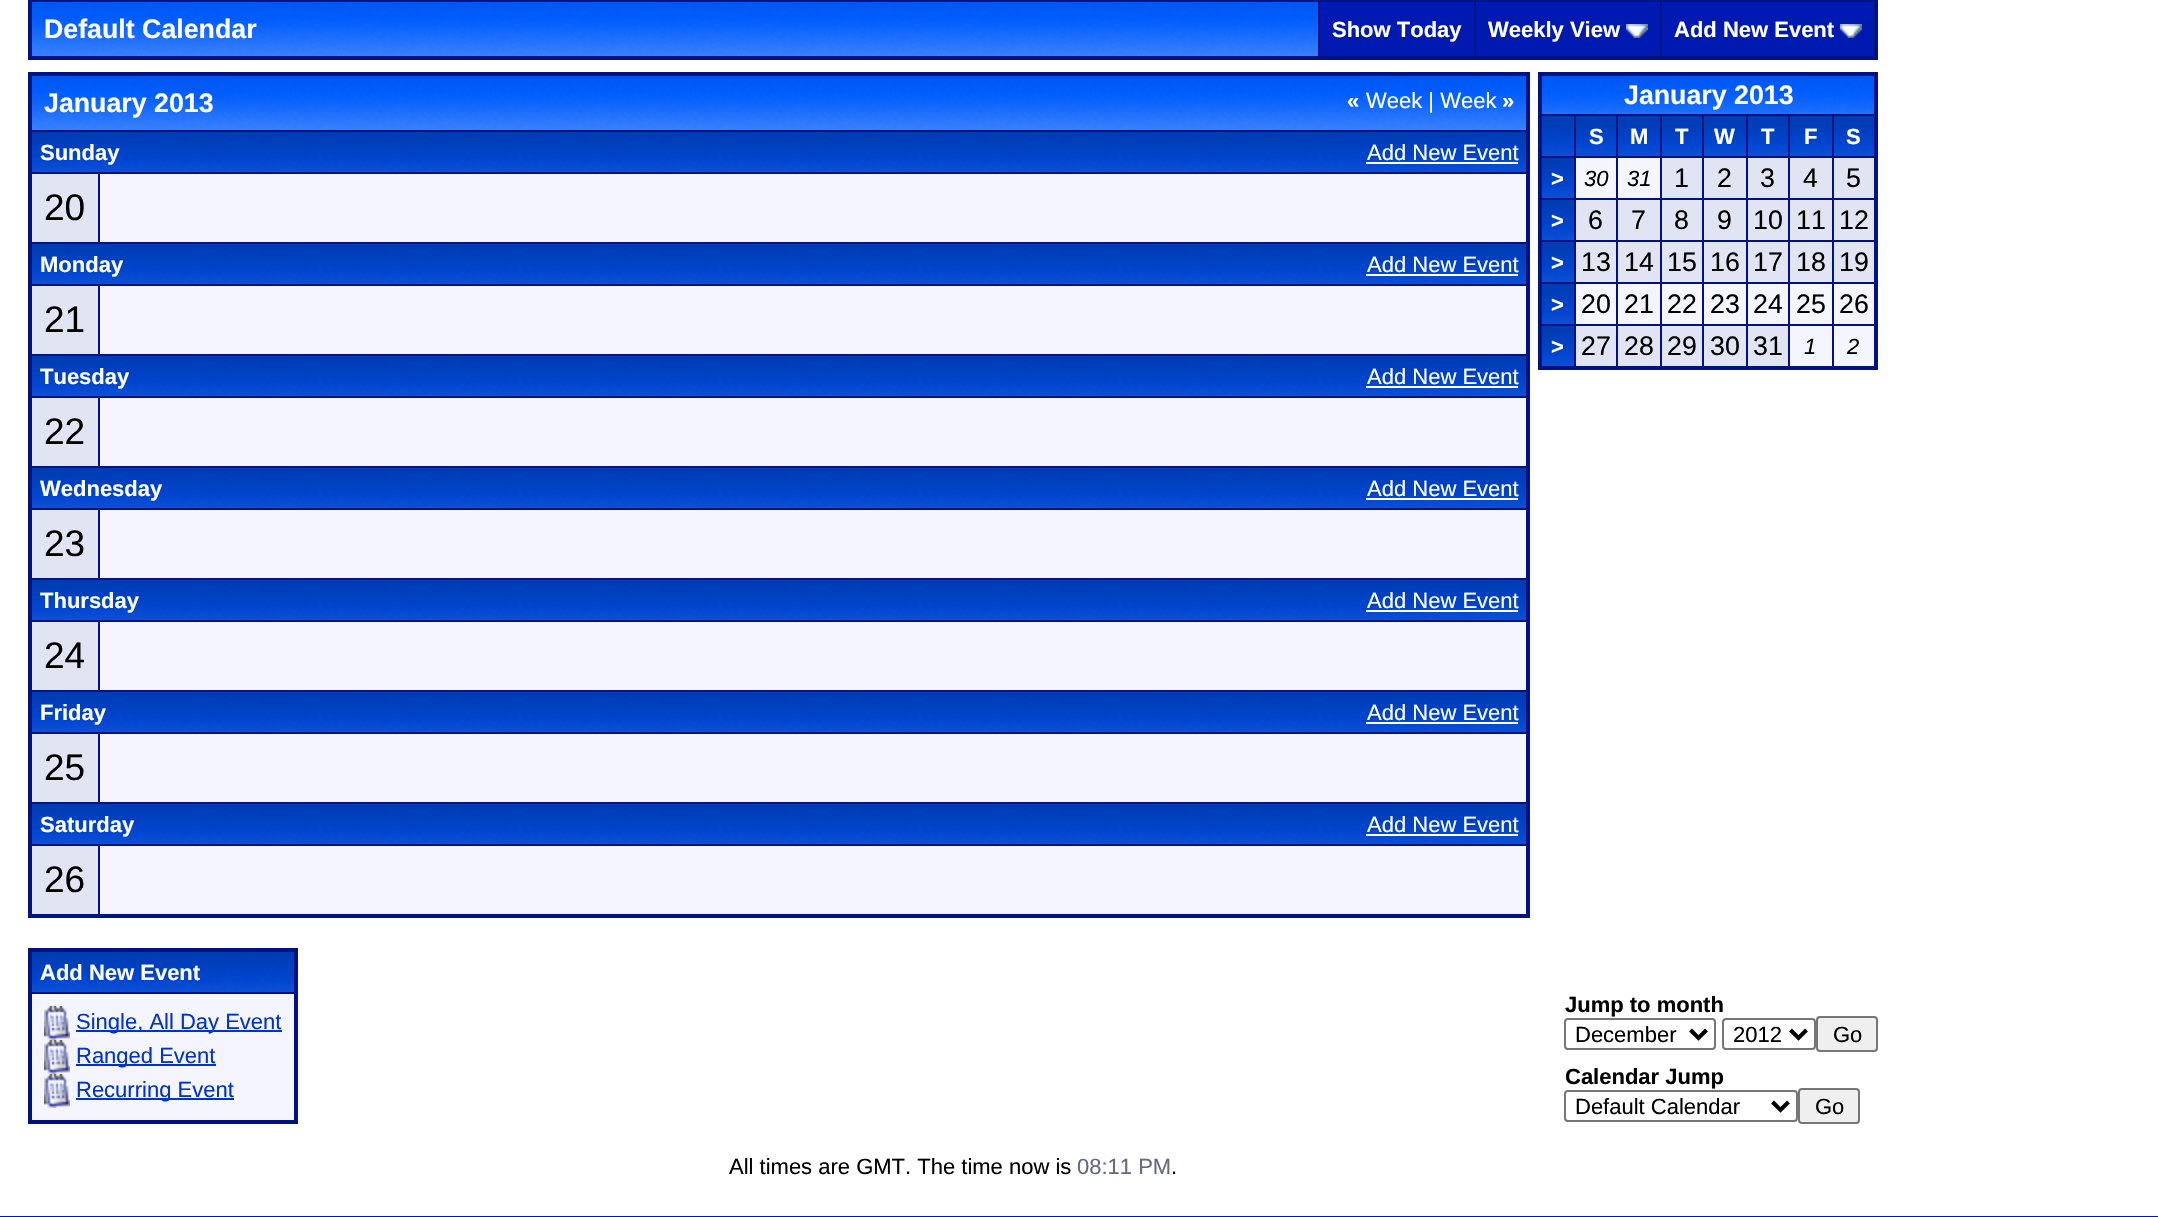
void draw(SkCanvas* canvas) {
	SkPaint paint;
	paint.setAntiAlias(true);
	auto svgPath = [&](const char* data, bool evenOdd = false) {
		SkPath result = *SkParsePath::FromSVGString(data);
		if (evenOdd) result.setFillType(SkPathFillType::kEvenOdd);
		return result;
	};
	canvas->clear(0xffffffff);
	paint.setColor(0xff001381);
	canvas->drawRect(SkRect::MakeXYWH(28, 0, 1850, 60), paint);
	canvas->drawImageRect(SkImages::DeferredFromEncodedData(SkData::MakeFromFileName("img1.png")), SkRect::MakeXYWH(32, 2, 1286, 54), SkSamplingOptions());
	SkFont f1(fontMgr->matchFamilyStyle("Liberation Sans", SkFontStyle::Bold()), 26.75);
	f1.setSubpixel(true);
	paint.setColor(0xffffffff);
	canvas->drawString("Default Calendar", 44, 38, f1, paint);
	paint.setColor(0xff001ab1);
	canvas->drawRect(SkRect::MakeXYWH(1320, 2, 154, 54), paint);
	SkFont f2(fontMgr->matchFamilyStyle("Liberation Sans", SkFontStyle::Bold()), 22);
	f2.setSubpixel(true);
	paint.setColor(0xffffffff);
	canvas->drawString("Show Today", 1332, 37, f2, paint);
	paint.setColor(0xff001ab1);
	canvas->drawRect(SkRect::MakeXYWH(1476, 2, 184, 54), paint);
	paint.setColor(0xffffffff);
	canvas->drawString("Weekly View", 1488, 37, f2, paint);
	canvas->drawImageRect(SkImages::DeferredFromEncodedData(SkData::MakeFromFileName("img2.png")), SkRect::MakeXYWH(1626, 24, 22, 14), SkSamplingOptions());
	paint.setColor(0xff001ab1);
	canvas->drawRect(SkRect::MakeXYWH(1662, 2, 212, 54), paint);
	paint.setColor(0xffffffff);
	canvas->drawString("Add New Event", 1674, 37, f2, paint);
	canvas->drawImageRect(SkImages::DeferredFromEncodedData(SkData::MakeFromFileName("img2.png")), SkRect::MakeXYWH(1840, 24, 22, 14), SkSamplingOptions());
	paint.setColor(0xff001381);
	canvas->drawRect(SkRect::MakeXYWH(28, 72, 1502, 846), paint);
	canvas->drawImageRect(SkImages::DeferredFromEncodedData(SkData::MakeFromFileName("img3.png")), SkRect::MakeXYWH(32, 76, 1494, 54), SkSamplingOptions());
	paint.setColor(0xffffffff);
	canvas->drawString("January 2013", 44, 112, f1, paint);
	canvas->drawString("«", 1347, 108, f2, paint);
	SkFont f3(fontMgr->matchFamilyStyle("Liberation Sans", SkFontStyle::Normal()), 22);
	f3.setSubpixel(true);
	canvas->drawString("Week | Week", 1366, 108, f3, paint);
	canvas->drawString("»", 1502, 108, f2, paint);
	canvas->drawImageRect(SkImages::DeferredFromEncodedData(SkData::MakeFromFileName("img4.png")), SkRect::MakeXYWH(32, 132, 1494, 40), SkSamplingOptions());
	canvas->drawString("Sunday", 40, 160, f2, paint);
	canvas->drawString("Add New Event", 1367, 160, f3, paint);
	canvas->drawRect(SkRect::MakeXYWH(1366, 162, 152, 2), paint);
	paint.setColor(0xffe1e4f2);
	canvas->drawRect(SkRect::MakeXYWH(32, 174, 66, 68), paint);
	SkFont f4(fontMgr->matchFamilyStyle("Liberation Sans", SkFontStyle::Normal()), 37);
	f4.setSubpixel(true);
	paint.setColor(0xff000000);
	canvas->drawString("20", 44, 220, f4, paint);
	paint.setColor(0xfff5f5ff);
	canvas->drawRect(SkRect::MakeXYWH(100, 174, 1426, 68), paint);
	canvas->drawImageRect(SkImages::DeferredFromEncodedData(SkData::MakeFromFileName("img4.png")), SkRect::MakeXYWH(32, 244, 1494, 40), SkSamplingOptions());
	paint.setColor(0xffffffff);
	canvas->drawString("Monday", 40, 272, f2, paint);
	canvas->drawString("Add New Event", 1367, 272, f3, paint);
	canvas->drawRect(SkRect::MakeXYWH(1366, 274, 152, 2), paint);
	paint.setColor(0xffe1e4f2);
	canvas->drawRect(SkRect::MakeXYWH(32, 286, 66, 68), paint);
	paint.setColor(0xff000000);
	canvas->drawString("21", 44, 332, f4, paint);
	paint.setColor(0xfff5f5ff);
	canvas->drawRect(SkRect::MakeXYWH(100, 286, 1426, 68), paint);
	canvas->drawImageRect(SkImages::DeferredFromEncodedData(SkData::MakeFromFileName("img4.png")), SkRect::MakeXYWH(32, 356, 1494, 40), SkSamplingOptions());
	paint.setColor(0xffffffff);
	canvas->drawString("Tuesday", 40, 384, f2, paint);
	canvas->drawString("Add New Event", 1367, 384, f3, paint);
	canvas->drawRect(SkRect::MakeXYWH(1366, 386, 152, 2), paint);
	paint.setColor(0xffe1e4f2);
	canvas->drawRect(SkRect::MakeXYWH(32, 398, 66, 68), paint);
	paint.setColor(0xff000000);
	canvas->drawString("22", 44, 444, f4, paint);
	paint.setColor(0xfff5f5ff);
	canvas->drawRect(SkRect::MakeXYWH(100, 398, 1426, 68), paint);
	canvas->drawImageRect(SkImages::DeferredFromEncodedData(SkData::MakeFromFileName("img4.png")), SkRect::MakeXYWH(32, 468, 1494, 40), SkSamplingOptions());
	paint.setColor(0xffffffff);
	canvas->drawString("Wednesday", 40, 496, f2, paint);
	canvas->drawString("Add New Event", 1367, 496, f3, paint);
	canvas->drawRect(SkRect::MakeXYWH(1366, 498, 152, 2), paint);
	paint.setColor(0xffe1e4f2);
	canvas->drawRect(SkRect::MakeXYWH(32, 510, 66, 68), paint);
	paint.setColor(0xff000000);
	canvas->drawString("23", 44, 556, f4, paint);
	paint.setColor(0xfff5f5ff);
	canvas->drawRect(SkRect::MakeXYWH(100, 510, 1426, 68), paint);
	canvas->drawImageRect(SkImages::DeferredFromEncodedData(SkData::MakeFromFileName("img4.png")), SkRect::MakeXYWH(32, 580, 1494, 40), SkSamplingOptions());
	paint.setColor(0xffffffff);
	canvas->drawString("Thursday", 40, 608, f2, paint);
	canvas->drawString("Add New Event", 1367, 608, f3, paint);
	canvas->drawRect(SkRect::MakeXYWH(1366, 610, 152, 2), paint);
	paint.setColor(0xffe1e4f2);
	canvas->drawRect(SkRect::MakeXYWH(32, 622, 66, 68), paint);
	paint.setColor(0xff000000);
	canvas->drawString("24", 44, 668, f4, paint);
	paint.setColor(0xfff5f5ff);
	canvas->drawRect(SkRect::MakeXYWH(100, 622, 1426, 68), paint);
	canvas->drawImageRect(SkImages::DeferredFromEncodedData(SkData::MakeFromFileName("img4.png")), SkRect::MakeXYWH(32, 692, 1494, 40), SkSamplingOptions());
	paint.setColor(0xffffffff);
	canvas->drawString("Friday", 40, 720, f2, paint);
	canvas->drawString("Add New Event", 1367, 720, f3, paint);
	canvas->drawRect(SkRect::MakeXYWH(1366, 722, 152, 2), paint);
	paint.setColor(0xffe1e4f2);
	canvas->drawRect(SkRect::MakeXYWH(32, 734, 66, 68), paint);
	paint.setColor(0xff000000);
	canvas->drawString("25", 44, 780, f4, paint);
	paint.setColor(0xfff5f5ff);
	canvas->drawRect(SkRect::MakeXYWH(100, 734, 1426, 68), paint);
	canvas->drawImageRect(SkImages::DeferredFromEncodedData(SkData::MakeFromFileName("img4.png")), SkRect::MakeXYWH(32, 804, 1494, 40), SkSamplingOptions());
	paint.setColor(0xffffffff);
	canvas->drawString("Saturday", 40, 832, f2, paint);
	canvas->drawString("Add New Event", 1367, 832, f3, paint);
	canvas->drawRect(SkRect::MakeXYWH(1366, 834, 152, 2), paint);
	paint.setColor(0xffe1e4f2);
	canvas->drawRect(SkRect::MakeXYWH(32, 846, 66, 68), paint);
	paint.setColor(0xff000000);
	canvas->drawString("26", 44, 892, f4, paint);
	paint.setColor(0xfff5f5ff);
	canvas->drawRect(SkRect::MakeXYWH(100, 846, 1426, 68), paint);
	paint.setColor(0xff001381);
	canvas->drawRect(SkRect::MakeXYWH(1538, 72, 340, 298), paint);
	canvas->drawImageRect(SkImages::DeferredFromEncodedData(SkData::MakeFromFileName("img5.png")), SkRect::MakeXYWH(1542, 76, 332, 38), SkSamplingOptions());
	paint.setColor(0xffffffff);
	canvas->drawString("January 2013", 1624, 104, f1, paint);
	canvas->drawImageRect(SkImages::DeferredFromEncodedData(SkData::MakeFromFileName("img6.png")), SkRect::MakeXYWH(1542, 116, 32, 40), SkSamplingOptions());
	canvas->drawImageRect(SkImages::DeferredFromEncodedData(SkData::MakeFromFileName("img7.png")), SkRect::MakeXYWH(1576, 116, 40, 40), SkSamplingOptions());
	canvas->drawString("S", 1589, 144, f2, paint);
	canvas->drawImageRect(SkImages::DeferredFromEncodedData(SkData::MakeFromFileName("img8.png")), SkRect::MakeXYWH(1618, 116, 42, 40), SkSamplingOptions());
	canvas->drawString("M", 1630, 144, f2, paint);
	canvas->drawImageRect(SkImages::DeferredFromEncodedData(SkData::MakeFromFileName("img7.png")), SkRect::MakeXYWH(1662, 116, 40, 40), SkSamplingOptions());
	canvas->drawString("T", 1675, 144, f2, paint);
	canvas->drawImageRect(SkImages::DeferredFromEncodedData(SkData::MakeFromFileName("img8.png")), SkRect::MakeXYWH(1704, 116, 42, 40), SkSamplingOptions());
	canvas->drawString("W", 1714, 144, f2, paint);
	canvas->drawImageRect(SkImages::DeferredFromEncodedData(SkData::MakeFromFileName("img7.png")), SkRect::MakeXYWH(1748, 116, 40, 40), SkSamplingOptions());
	canvas->drawString("T", 1761, 144, f2, paint);
	canvas->drawImageRect(SkImages::DeferredFromEncodedData(SkData::MakeFromFileName("img8.png")), SkRect::MakeXYWH(1790, 116, 42, 40), SkSamplingOptions());
	canvas->drawString("F", 1804, 144, f2, paint);
	canvas->drawImageRect(SkImages::DeferredFromEncodedData(SkData::MakeFromFileName("img9.png")), SkRect::MakeXYWH(1834, 116, 40, 40), SkSamplingOptions());
	canvas->drawString("S", 1846, 144, f2, paint);
	canvas->drawImageRect(SkImages::DeferredFromEncodedData(SkData::MakeFromFileName("img6.png")), SkRect::MakeXYWH(1542, 158, 32, 40), SkSamplingOptions());
	canvas->drawString(">", 1551, 186, f2, paint);
	paint.setColor(0xfff5f5ff);
	canvas->drawRect(SkRect::MakeXYWH(1576, 158, 40, 40), paint);
	SkFont f5(fontMgr->matchFamilyStyle("Liberation Sans", SkFontStyle::Italic()), 22);
	f5.setSubpixel(true);
	paint.setColor(0xff000000);
	canvas->drawString("30", 1584, 186, f5, paint);
	paint.setColor(0xfff5f5ff);
	canvas->drawRect(SkRect::MakeXYWH(1618, 158, 42, 40), paint);
	paint.setColor(0xff000000);
	canvas->drawString("31", 1627, 186, f5, paint);
	paint.setColor(0xffe1e4f2);
	canvas->drawRect(SkRect::MakeXYWH(1662, 158, 40, 40), paint);
	SkFont f6(fontMgr->matchFamilyStyle("Liberation Sans", SkFontStyle::Normal()), 26.75);
	f6.setSubpixel(true);
	paint.setColor(0xff000000);
	canvas->drawString("1", 1674, 187, f6, paint);
	paint.setColor(0xffe1e4f2);
	canvas->drawRect(SkRect::MakeXYWH(1704, 158, 42, 40), paint);
	paint.setColor(0xff000000);
	canvas->drawString("2", 1717, 187, f6, paint);
	paint.setColor(0xffe1e4f2);
	canvas->drawRect(SkRect::MakeXYWH(1748, 158, 40, 40), paint);
	paint.setColor(0xff000000);
	canvas->drawString("3", 1760, 187, f6, paint);
	paint.setColor(0xffe1e4f2);
	canvas->drawRect(SkRect::MakeXYWH(1790, 158, 42, 40), paint);
	paint.setColor(0xff000000);
	canvas->drawString("4", 1803, 187, f6, paint);
	paint.setColor(0xffe1e4f2);
	canvas->drawRect(SkRect::MakeXYWH(1834, 158, 40, 40), paint);
	paint.setColor(0xff000000);
	canvas->drawString("5", 1846, 187, f6, paint);
	canvas->drawImageRect(SkImages::DeferredFromEncodedData(SkData::MakeFromFileName("img6.png")), SkRect::MakeXYWH(1542, 200, 32, 40), SkSamplingOptions());
	paint.setColor(0xffffffff);
	canvas->drawString(">", 1551, 228, f2, paint);
	paint.setColor(0xffe1e4f2);
	canvas->drawRect(SkRect::MakeXYWH(1576, 200, 40, 40), paint);
	paint.setColor(0xff000000);
	canvas->drawString("6", 1588, 229, f6, paint);
	paint.setColor(0xffe1e4f2);
	canvas->drawRect(SkRect::MakeXYWH(1618, 200, 42, 40), paint);
	paint.setColor(0xff000000);
	canvas->drawString("7", 1631, 229, f6, paint);
	paint.setColor(0xffe1e4f2);
	canvas->drawRect(SkRect::MakeXYWH(1662, 200, 40, 40), paint);
	paint.setColor(0xff000000);
	canvas->drawString("8", 1674, 229, f6, paint);
	paint.setColor(0xffe1e4f2);
	canvas->drawRect(SkRect::MakeXYWH(1704, 200, 42, 40), paint);
	paint.setColor(0xff000000);
	canvas->drawString("9", 1717, 229, f6, paint);
	paint.setColor(0xffe1e4f2);
	canvas->drawRect(SkRect::MakeXYWH(1748, 200, 40, 40), paint);
	paint.setColor(0xff000000);
	canvas->drawString("10", 1753, 229, f6, paint);
	paint.setColor(0xffe1e4f2);
	canvas->drawRect(SkRect::MakeXYWH(1790, 200, 42, 40), paint);
	paint.setColor(0xff000000);
	canvas->drawString("11", 1796, 229, f6, paint);
	paint.setColor(0xffe1e4f2);
	canvas->drawRect(SkRect::MakeXYWH(1834, 200, 40, 40), paint);
	paint.setColor(0xff000000);
	canvas->drawString("12", 1839, 229, f6, paint);
	canvas->drawImageRect(SkImages::DeferredFromEncodedData(SkData::MakeFromFileName("img6.png")), SkRect::MakeXYWH(1542, 242, 32, 40), SkSamplingOptions());
	paint.setColor(0xffffffff);
	canvas->drawString(">", 1551, 270, f2, paint);
	paint.setColor(0xffe1e4f2);
	canvas->drawRect(SkRect::MakeXYWH(1576, 242, 40, 40), paint);
	paint.setColor(0xff000000);
	canvas->drawString("13", 1581, 271, f6, paint);
	paint.setColor(0xffe1e4f2);
	canvas->drawRect(SkRect::MakeXYWH(1618, 242, 42, 40), paint);
	paint.setColor(0xff000000);
	canvas->drawString("14", 1624, 271, f6, paint);
	paint.setColor(0xffe1e4f2);
	canvas->drawRect(SkRect::MakeXYWH(1662, 242, 40, 40), paint);
	paint.setColor(0xff000000);
	canvas->drawString("15", 1667, 271, f6, paint);
	paint.setColor(0xffe1e4f2);
	canvas->drawRect(SkRect::MakeXYWH(1704, 242, 42, 40), paint);
	paint.setColor(0xff000000);
	canvas->drawString("16", 1710, 271, f6, paint);
	paint.setColor(0xffe1e4f2);
	canvas->drawRect(SkRect::MakeXYWH(1748, 242, 40, 40), paint);
	paint.setColor(0xff000000);
	canvas->drawString("17", 1753, 271, f6, paint);
	paint.setColor(0xffe1e4f2);
	canvas->drawRect(SkRect::MakeXYWH(1790, 242, 42, 40), paint);
	paint.setColor(0xff000000);
	canvas->drawString("18", 1796, 271, f6, paint);
	paint.setColor(0xffe1e4f2);
	canvas->drawRect(SkRect::MakeXYWH(1834, 242, 40, 40), paint);
	paint.setColor(0xff000000);
	canvas->drawString("19", 1839, 271, f6, paint);
	canvas->drawImageRect(SkImages::DeferredFromEncodedData(SkData::MakeFromFileName("img6.png")), SkRect::MakeXYWH(1542, 284, 32, 40), SkSamplingOptions());
	paint.setColor(0xffffffff);
	canvas->drawString(">", 1551, 312, f2, paint);
	paint.setColor(0xfff5f5ff);
	canvas->drawRect(SkRect::MakeXYWH(1576, 284, 40, 40), paint);
	paint.setColor(0xff000000);
	canvas->drawString("20", 1581, 313, f6, paint);
	paint.setColor(0xfff5f5ff);
	canvas->drawRect(SkRect::MakeXYWH(1618, 284, 42, 40), paint);
	paint.setColor(0xff000000);
	canvas->drawString("21", 1624, 313, f6, paint);
	paint.setColor(0xfff5f5ff);
	canvas->drawRect(SkRect::MakeXYWH(1662, 284, 40, 40), paint);
	paint.setColor(0xff000000);
	canvas->drawString("22", 1667, 313, f6, paint);
	paint.setColor(0xfff5f5ff);
	canvas->drawRect(SkRect::MakeXYWH(1704, 284, 42, 40), paint);
	paint.setColor(0xff000000);
	canvas->drawString("23", 1710, 313, f6, paint);
	paint.setColor(0xfff5f5ff);
	canvas->drawRect(SkRect::MakeXYWH(1748, 284, 40, 40), paint);
	paint.setColor(0xff000000);
	canvas->drawString("24", 1753, 313, f6, paint);
	paint.setColor(0xfff5f5ff);
	canvas->drawRect(SkRect::MakeXYWH(1790, 284, 42, 40), paint);
	paint.setColor(0xff000000);
	canvas->drawString("25", 1796, 313, f6, paint);
	paint.setColor(0xfff5f5ff);
	canvas->drawRect(SkRect::MakeXYWH(1834, 284, 40, 40), paint);
	paint.setColor(0xff000000);
	canvas->drawString("26", 1839, 313, f6, paint);
	canvas->drawImageRect(SkImages::DeferredFromEncodedData(SkData::MakeFromFileName("img6.png")), SkRect::MakeXYWH(1542, 326, 32, 40), SkSamplingOptions());
	paint.setColor(0xffffffff);
	canvas->drawString(">", 1551, 354, f2, paint);
	paint.setColor(0xffe1e4f2);
	canvas->drawRect(SkRect::MakeXYWH(1576, 326, 40, 40), paint);
	paint.setColor(0xff000000);
	canvas->drawString("27", 1581, 355, f6, paint);
	paint.setColor(0xffe1e4f2);
	canvas->drawRect(SkRect::MakeXYWH(1618, 326, 42, 40), paint);
	paint.setColor(0xff000000);
	canvas->drawString("28", 1624, 355, f6, paint);
	paint.setColor(0xffe1e4f2);
	canvas->drawRect(SkRect::MakeXYWH(1662, 326, 40, 40), paint);
	paint.setColor(0xff000000);
	canvas->drawString("29", 1667, 355, f6, paint);
	paint.setColor(0xffe1e4f2);
	canvas->drawRect(SkRect::MakeXYWH(1704, 326, 42, 40), paint);
	paint.setColor(0xff000000);
	canvas->drawString("30", 1710, 355, f6, paint);
	paint.setColor(0xffe1e4f2);
	canvas->drawRect(SkRect::MakeXYWH(1748, 326, 40, 40), paint);
	paint.setColor(0xff000000);
	canvas->drawString("31", 1753, 355, f6, paint);
	paint.setColor(0xfff5f5ff);
	canvas->drawRect(SkRect::MakeXYWH(1790, 326, 42, 40), paint);
	paint.setColor(0xff000000);
	canvas->drawString("1", 1804, 354, f5, paint);
	paint.setColor(0xfff5f5ff);
	canvas->drawRect(SkRect::MakeXYWH(1834, 326, 40, 40), paint);
	paint.setColor(0xff000000);
	canvas->drawString("2", 1847, 354, f5, paint);
	paint.setColor(0xff001381);
	canvas->drawRect(SkRect::MakeXYWH(28, 948, 270, 176), paint);
	canvas->drawImageRect(SkImages::DeferredFromEncodedData(SkData::MakeFromFileName("img10.png")), SkRect::MakeXYWH(32, 952, 262, 40), SkSamplingOptions());
	paint.setColor(0xffffffff);
	canvas->drawString("Add New Event", 40, 980, f2, paint);
	paint.setColor(0xfff5f5ff);
	canvas->drawRect(SkRect::MakeXYWH(32, 994, 262, 126), paint);
	canvas->drawImageRect(SkImages::DeferredFromEncodedData(SkData::MakeFromFileName("img11.png")), SkRect::MakeXYWH(44, 1006, 26, 34), SkSamplingOptions());
	paint.setColor(0xff0033cc);
	canvas->drawRect(SkRect::MakeXYWH(76, 1030, 206, 2), paint);
	canvas->drawString("Single, All Day Event", 76, 1029, f3, paint);
	canvas->drawImageRect(SkImages::DeferredFromEncodedData(SkData::MakeFromFileName("img11.png")), SkRect::MakeXYWH(44, 1040, 26, 34), SkSamplingOptions());
	canvas->drawRect(SkRect::MakeXYWH(76, 1064, 140, 2), paint);
	canvas->drawString("Ranged Event", 76, 1063, f3, paint);
	canvas->drawImageRect(SkImages::DeferredFromEncodedData(SkData::MakeFromFileName("img11.png")), SkRect::MakeXYWH(44, 1074, 26, 34), SkSamplingOptions());
	canvas->drawRect(SkRect::MakeXYWH(76, 1098, 158, 2), paint);
	canvas->drawString("Recurring Event", 76, 1097, f3, paint);
	paint.setColor(0xff000000);
	canvas->drawString("Jump to month", 1565, 1012, f2, paint);
	paint.setStroke(true);
	paint.setStrokeWidth(2);
	paint.setColor(0xff767676);
	canvas->drawRoundRect(SkRect::MakeXYWH(1565, 1019, 150, 30), 3, 3, paint);
	paint.setStrokeWidth(4);
	paint.setColor(0xff000000);
	canvas->drawPath(svgPath("M1690.5 1030L1698.5 1038L1706.5 1030"), paint);
	paint.setStroke(false);
	canvas->drawString("December", 1575, 1042, f3, paint);
	paint.setStroke(true);
	paint.setStrokeWidth(2);
	paint.setColor(0xff767676);
	canvas->drawRoundRect(SkRect::MakeXYWH(1723, 1019, 92, 30), 3, 3, paint);
	paint.setStrokeWidth(4);
	paint.setColor(0xff000000);
	canvas->drawPath(svgPath("M1790.5 1030L1798.5 1038L1806.5 1030"), paint);
	paint.setStroke(false);
	canvas->drawString("2012", 1733, 1042, f3, paint);
	paint.setColor(0xffefefef);
	canvas->drawRoundRect(SkRect::MakeXYWH(1817, 1017, 60, 34), 3, 3, paint);
	paint.setStroke(true);
	paint.setStrokeWidth(2);
	paint.setColor(0xff767676);
	canvas->drawRoundRect(SkRect::MakeXYWH(1817, 1017, 60, 34), 3, 3, paint);
	paint.setStroke(false);
	paint.setColor(0xff000000);
	canvas->drawString("Go", 1833, 1042, f3, paint);
	canvas->drawString("Calendar Jump", 1565, 1084, f2, paint);
	paint.setStroke(true);
	paint.setColor(0xff767676);
	canvas->drawRoundRect(SkRect::MakeXYWH(1565, 1091, 232, 30), 3, 3, paint);
	paint.setStrokeWidth(4);
	paint.setColor(0xff000000);
	canvas->drawPath(svgPath("M1772.5 1102L1780.5 1110L1788.5 1102"), paint);
	paint.setStroke(false);
	canvas->drawString("Default Calendar", 1575, 1114, f3, paint);
	paint.setColor(0xffefefef);
	canvas->drawRoundRect(SkRect::MakeXYWH(1799, 1089, 60, 34), 3, 3, paint);
	paint.setStroke(true);
	paint.setStrokeWidth(2);
	paint.setColor(0xff767676);
	canvas->drawRoundRect(SkRect::MakeXYWH(1799, 1089, 60, 34), 3, 3, paint);
	paint.setStroke(false);
	paint.setColor(0xff000000);
	canvas->drawString("Go", 1815, 1114, f3, paint);
	canvas->drawString("All times are GMT. The time now is", 729, 1174, f3, paint);
	paint.setColor(0xff666686);
	canvas->drawString("08:11 PM", 1077, 1174, f3, paint);
	paint.setColor(0xff000000);
	canvas->drawString(".", 1171, 1174, f3, paint);
	paint.setColor(0xff001ab1);
	canvas->drawRect(SkRect::MakeXYWH(0, 1216, 2158, 1), paint);
}
